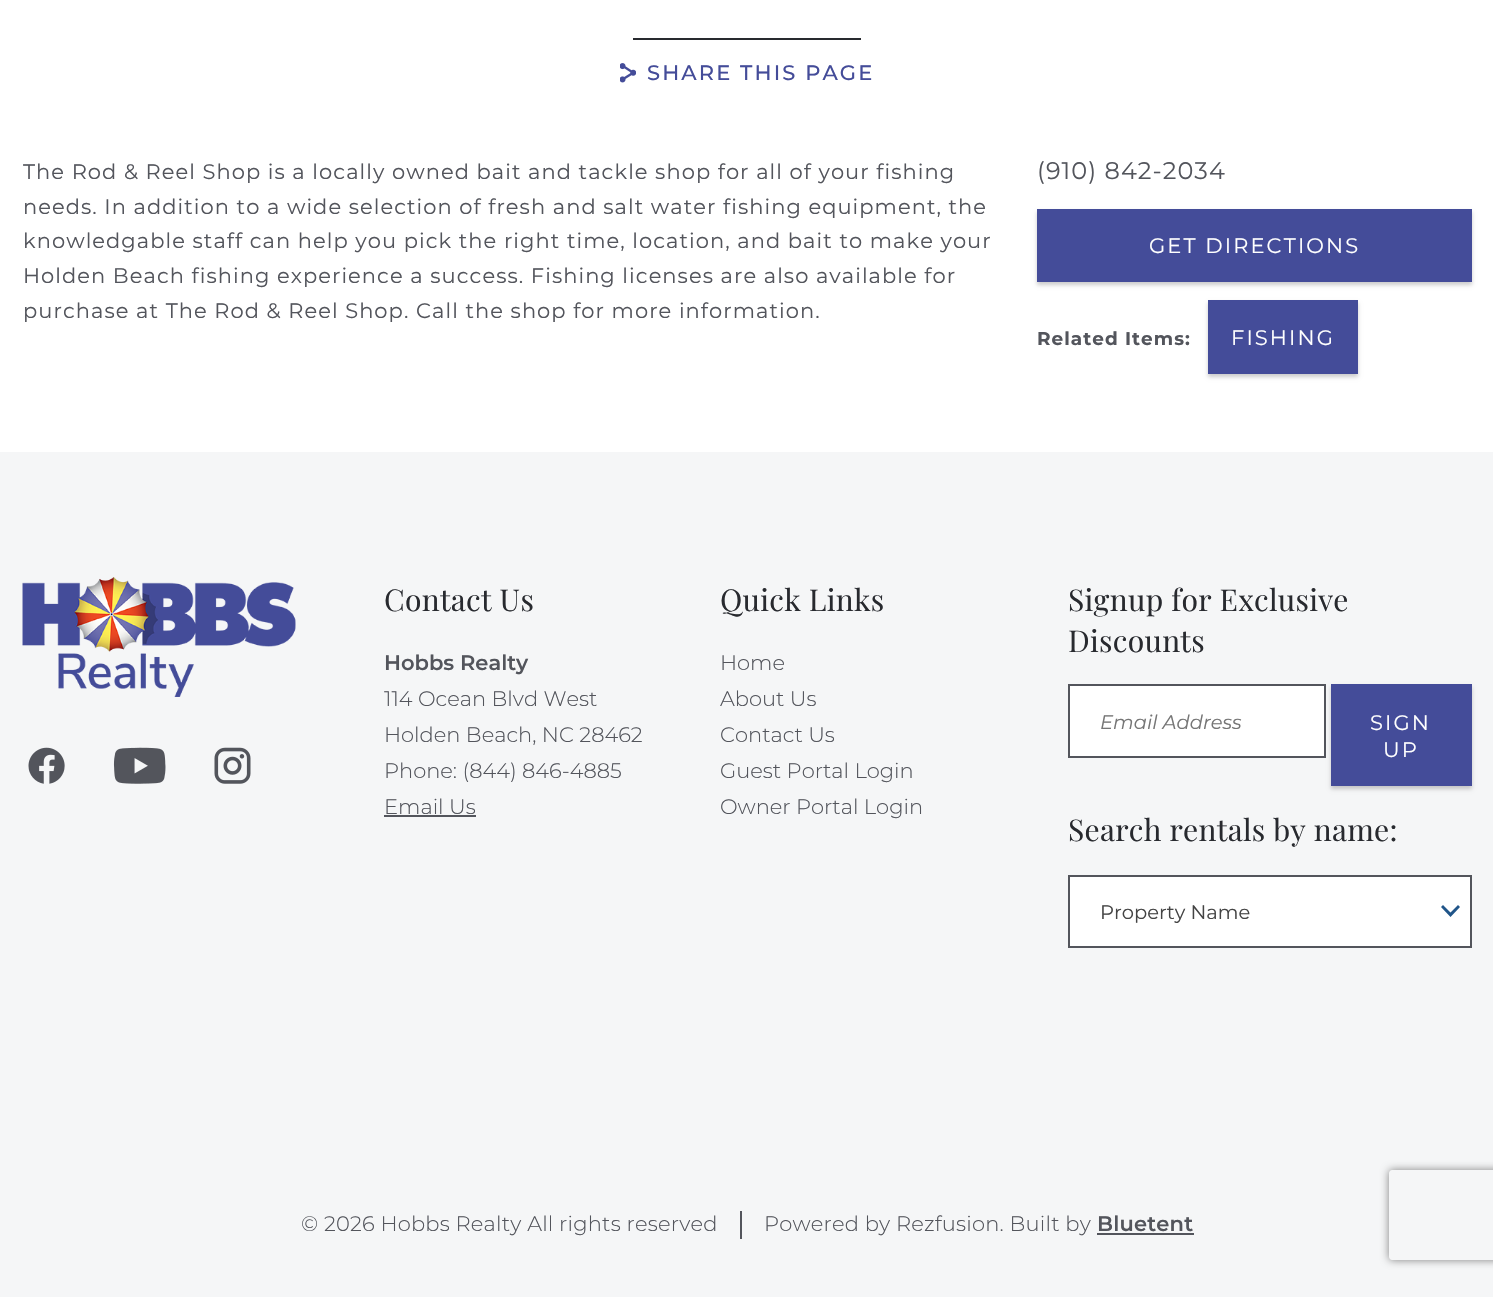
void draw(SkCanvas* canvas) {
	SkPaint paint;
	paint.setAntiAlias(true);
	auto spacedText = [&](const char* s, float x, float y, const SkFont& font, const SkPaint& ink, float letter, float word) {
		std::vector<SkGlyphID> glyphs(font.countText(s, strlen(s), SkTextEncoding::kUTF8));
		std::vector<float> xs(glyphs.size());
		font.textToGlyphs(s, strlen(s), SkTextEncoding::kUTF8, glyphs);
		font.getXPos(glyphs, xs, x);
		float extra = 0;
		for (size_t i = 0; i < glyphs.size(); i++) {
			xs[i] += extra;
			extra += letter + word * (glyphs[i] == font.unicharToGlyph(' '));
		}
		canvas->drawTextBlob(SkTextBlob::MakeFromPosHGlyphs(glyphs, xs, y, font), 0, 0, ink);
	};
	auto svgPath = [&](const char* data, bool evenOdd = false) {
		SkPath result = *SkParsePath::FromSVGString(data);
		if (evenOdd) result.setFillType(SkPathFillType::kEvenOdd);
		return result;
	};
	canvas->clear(0xffffffff);
	paint.setColor(0xff282a2f);
	canvas->drawRect(SkRect::MakeXYWH(633, 38, 228, 2), paint);
	canvas->drawImageRect(SkImages::DeferredFromEncodedData(SkData::MakeFromFileName("img1.png")), SkRect::MakeXYWH(620, 63, 16, 20), SkSamplingOptions());
	SkFont f1(fontMgr->matchFamilyStyle("Montserrat", SkFontStyle(100, SkFontStyle::kNormal_Width, SkFontStyle::kUpright_Slant)), 21);
	f1.setSubpixel(true);
	paint.setColor(0xff444c99);
	spacedText("SHARE THIS PAGE", 647, 80, f1, paint, 2.1, 0);
	SkFont f2(fontMgr->matchFamilyStyle("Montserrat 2", SkFontStyle(100, SkFontStyle::kNormal_Width, SkFontStyle::kUpright_Slant)), 21);
	f2.setSubpixel(true);
	paint.setColor(0xff53555c);
	spacedText("The Rod & Reel Shop is a locally owned bait and tackle shop for all of your fishing", 23, 179, f2, paint, 1.05, 0);
	spacedText("needs. In addition to a wide selection of fresh and salt water fishing equipment, the", 23, 214, f2, paint, 1.05, 0);
	spacedText("knowledgable staff can help you pick the right time, location, and bait to make your", 23, 248, f2, paint, 1.05, 0);
	spacedText("Holden Beach fishing experience a success. Fishing licenses are also available for", 23, 283, f2, paint, 1.05, 0);
	spacedText("purchase at The Rod & Reel Shop. Call the shop for more information.", 23, 318, f2, paint, 1.05, 0);
	SkFont f3(fontMgr->matchFamilyStyle("Montserrat 2", SkFontStyle(100, SkFontStyle::kNormal_Width, SkFontStyle::kUpright_Slant)), 24);
	f3.setSubpixel(true);
	spacedText("(910) 842-2034", 1037, 179, f3, paint, 1.05, 0);
	paint.setColor(0x33000000);
	paint.setMaskFilter(SkMaskFilter::MakeBlur(kNormal_SkBlurStyle, 2));
	canvas->drawRect(SkRect::MakeXYWH(1037, 212, 435, 73), paint);
	paint.setMaskFilter(nullptr);
	paint.setColor(0xff444c99);
	canvas->drawRect(SkRect::MakeXYWH(1037, 209, 435, 73), paint);
	paint.setColor(0xffffffff);
	spacedText("GET DIRECTIONS", 1149, 253, f2, paint, 2.1, 0);
	SkFont f4(fontMgr->matchFamilyStyle("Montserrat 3", SkFontStyle(100, SkFontStyle::kNormal_Width, SkFontStyle::kUpright_Slant)), 18.4);
	f4.setSubpixel(true);
	paint.setColor(0xff53555c);
	spacedText("Related Items:", 1037, 345, f4, paint, 1.05, 0);
	paint.setColor(0x33000000);
	paint.setMaskFilter(SkMaskFilter::MakeBlur(kNormal_SkBlurStyle, 2));
	canvas->drawRect(SkRect::MakeXYWH(1208, 303, 150, 74), paint);
	paint.setMaskFilter(nullptr);
	paint.setColor(0xff444c99);
	canvas->drawRect(SkRect::MakeXYWH(1208, 300, 150, 74), paint);
	paint.setColor(0xffffffff);
	spacedText("FISHING", 1231, 345, f2, paint, 2.1, 0);
	paint.setColor(0xfff5f6f7);
	canvas->drawRect(SkRect::MakeXYWH(0, 452, 1493, 845), paint);
	canvas->drawImageRect(SkImages::DeferredFromEncodedData(SkData::MakeFromFileName("img2.png")), SkRect::MakeXYWH(22, 577, 274, 120), SkSamplingOptions());
	canvas->drawImageRect(SkImages::DeferredFromEncodedData(SkData::MakeFromFileName("img3.png")), SkRect::MakeXYWH(28, 747, 37, 37), SkSamplingOptions());
	canvas->drawImageRect(SkImages::DeferredFromEncodedData(SkData::MakeFromFileName("img4.png")), SkRect::MakeXYWH(113, 747, 53, 37), SkSamplingOptions());
	canvas->drawImageRect(SkImages::DeferredFromEncodedData(SkData::MakeFromFileName("img5.png")), SkRect::MakeXYWH(214, 747, 37, 37), SkSamplingOptions());
	SkFont f5(fontMgr->matchFamilyStyle("Playfair Display", SkFontStyle::Normal()), 30);
	f5.setSubpixel(true);
	paint.setColor(0xff282a2f);
	spacedText("Contact Us", 384, 611, f5, paint, 0.3, 0);
	SkFont f6(fontMgr->matchFamilyStyle("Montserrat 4", SkFontStyle(100, SkFontStyle::kNormal_Width, SkFontStyle::kUpright_Slant)), 21);
	f6.setSubpixel(true);
	paint.setColor(0xff53555c);
	canvas->drawString("Hobbs Realty", 384, 670, f6, paint);
	SkFont f7(fontMgr->matchFamilyStyle("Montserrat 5", SkFontStyle(100, SkFontStyle::kNormal_Width, SkFontStyle::kUpright_Slant)), 21);
	f7.setSubpixel(true);
	canvas->drawString("114 Ocean Blvd West", 384, 706, f7, paint);
	canvas->drawString("Holden Beach, NC 28462", 384, 742, f7, paint);
	canvas->drawString("Phone: (844) 846-4885", 384, 778, f7, paint);
	canvas->drawString("Email Us", 384, 814, f7, paint);
	canvas->drawRect(SkRect::MakeXYWH(384, 815, 92, 2), paint);
	paint.setColor(0xff282a2f);
	spacedText("Quick Links", 720, 611, f5, paint, 0.3, 0);
	paint.setColor(0xff53555c);
	canvas->drawString("Home", 720, 670, f7, paint);
	canvas->drawString("About Us", 720, 706, f7, paint);
	canvas->drawString("Contact Us", 720, 742, f7, paint);
	canvas->drawString("Guest Portal Login", 720, 778, f7, paint);
	canvas->drawString("Owner Portal Login", 720, 814, f7, paint);
	paint.setColor(0xff282a2f);
	spacedText("Signup for Exclusive", 1068, 611, f5, paint, 0.3, 0);
	spacedText("Discounts", 1068, 652, f5, paint, 0.3, 0);
	paint.setColor(0xffffffff);
	canvas->drawRect(SkRect::MakeXYWH(1069, 685, 256, 72), paint);
	paint.setStroke(true);
	paint.setStrokeWidth(2);
	paint.setColor(0xff53555c);
	canvas->drawRect(SkRect::MakeXYWH(1069, 685, 256, 72), paint);
	SkFont f8(fontMgr->matchFamilyStyle("Montserrat", SkFontStyle(100, SkFontStyle::kNormal_Width, SkFontStyle::kItalic_Slant)), 19.5);
	f8.setSubpixel(true);
	paint.setStroke(false);
	paint.setColor(0xff757575);
	canvas->drawString("Email Address", 1100, 729, f8, paint);
	paint.setColor(0x33000000);
	paint.setMaskFilter(SkMaskFilter::MakeBlur(kNormal_SkBlurStyle, 2));
	canvas->drawRect(SkRect::MakeXYWH(1331, 687, 141, 102), paint);
	paint.setMaskFilter(nullptr);
	paint.setColor(0xff444c99);
	canvas->drawRect(SkRect::MakeXYWH(1331, 684, 141, 102), paint);
	paint.setColor(0xffffffff);
	spacedText("SIGN", 1370, 730, f2, paint, 2.1, 0);
	spacedText("UP", 1383, 757, f2, paint, 2.1, 0);
	canvas->save();
	canvas->clipPath(svgPath("M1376 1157H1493V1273H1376ZM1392 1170H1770C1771.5 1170 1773 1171.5 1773 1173V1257C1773 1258.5 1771.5 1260 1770 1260H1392C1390.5 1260 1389 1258.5 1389 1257V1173C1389 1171.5 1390.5 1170 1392 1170Z", true), true);
	paint.setColor(0xff808080);
	paint.setMaskFilter(SkMaskFilter::MakeBlur(kNormal_SkBlurStyle, 4));
	canvas->drawRoundRect(SkRect::MakeXYWH(1389, 1170, 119, 90), 3, 3, paint);
	paint.setMaskFilter(nullptr);
	canvas->restore();
	paint.setColor(0xff282a2f);
	spacedText("Search rentals by name:", 1068, 841, f5, paint, 0.3, 0);
	paint.setColor(0xffffffff);
	canvas->drawRect(SkRect::MakeXYWH(1070, 877, 400, 69), paint);
	paint.setColor(0xff205589);
	canvas->drawPath(svgPath("M1458 905L1450.5 912.5L1443 905L1441 907L1450.5 917L1460 907Z"), paint);
	paint.setStroke(true);
	paint.setColor(0xff53555c);
	canvas->drawRect(SkRect::MakeXYWH(1069, 876, 402, 71), paint);
	SkFont f9(fontMgr->matchFamilyStyle("Montserrat 2", SkFontStyle(100, SkFontStyle::kNormal_Width, SkFontStyle::kUpright_Slant)), 19.5);
	f9.setSubpixel(true);
	paint.setStroke(false);
	paint.setColor(0xff444444);
	canvas->drawString("Property Name", 1100, 919, f9, paint);
	paint.setColor(0xff53555c);
	canvas->drawRect(SkRect::MakeXYWH(740, 1211, 2, 28), paint);
	spacedText("© 2026 Hobbs Realty All rights reserved", 301, 1231, f7, paint, 0.2, 0);
	spacedText("Powered by Rezfusion. Built by", 764, 1231, f7, paint, 0.2, 0);
	spacedText("Bluetent", 1097, 1231, f6, paint, 0.2, 0);
	canvas->drawRect(SkRect::MakeXYWH(1097, 1233, 97, 2), paint);
}
